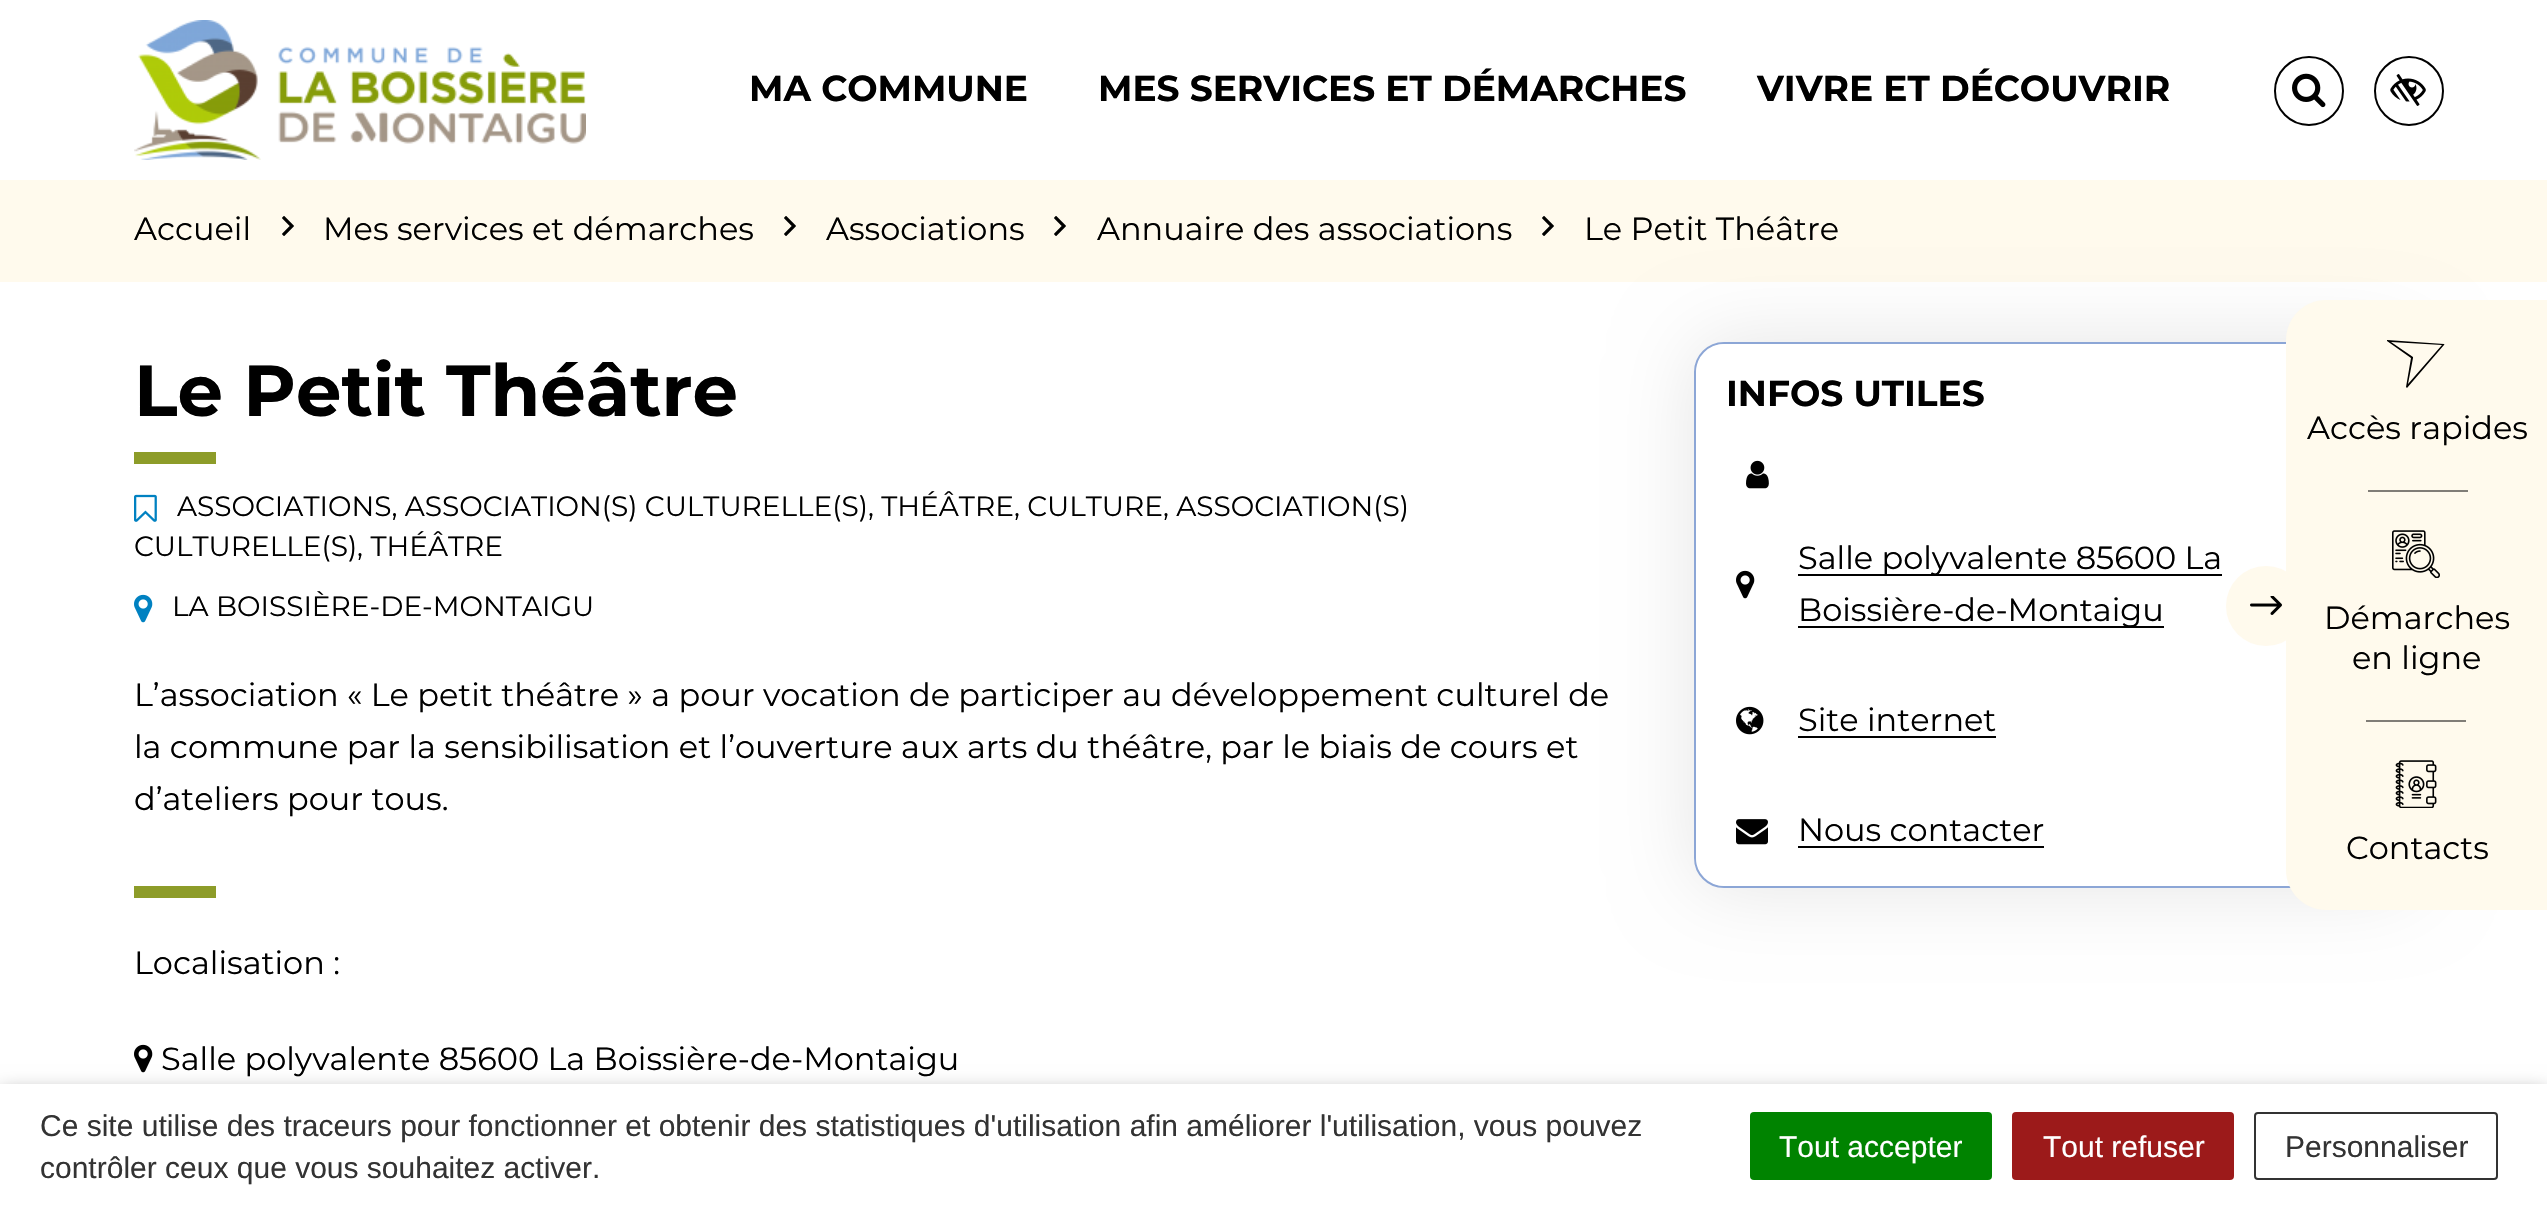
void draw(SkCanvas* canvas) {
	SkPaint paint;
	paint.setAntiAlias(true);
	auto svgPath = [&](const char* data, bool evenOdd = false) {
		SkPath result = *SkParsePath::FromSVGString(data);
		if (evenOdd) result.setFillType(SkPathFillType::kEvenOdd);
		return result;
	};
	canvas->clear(0xffffffff);
	canvas->drawImageRect(SkImages::DeferredFromEncodedData(SkData::MakeFromFileName("img1.png")), SkRect::MakeXYWH(134, 20, 452, 140), SkSamplingOptions());
	SkFont f1(fontMgr->matchFamilyStyle("Montserrat", SkFontStyle::Bold()), 36);
	f1.setSubpixel(true);
	paint.setColor(0xff000000);
	canvas->drawString("MA COMMUNE", 749, 101, f1, paint);
	canvas->drawString("MES SERVICES ET DÉMARCHES", 1098, 101, f1, paint);
	canvas->drawString("VIVRE ET DÉCOUVRIR", 1757, 101, f1, paint);
	paint.setStroke(true);
	paint.setStrokeWidth(2);
	canvas->drawCircle(2309, 91, 34, paint);
	canvas->drawImageRect(SkImages::DeferredFromEncodedData(SkData::MakeFromFileName("img2.png")), SkRect::MakeXYWH(2292, 73, 34, 35), SkSamplingOptions());
	canvas->drawCircle(2409, 91, 34, paint);
	canvas->drawImageRect(SkImages::DeferredFromEncodedData(SkData::MakeFromFileName("img3.png")), SkRect::MakeXYWH(2390, 74, 36, 32), SkSamplingOptions());
	paint.setStroke(false);
	paint.setColor(0xfffffaed);
	canvas->drawRect(SkRect::MakeXYWH(0, 180, 2547, 102), paint);
	SkFont f2(fontMgr->matchFamilyStyle("Montserrat", SkFontStyle::Normal()), 32);
	f2.setSubpixel(true);
	paint.setColor(0xff000000);
	canvas->drawString("Accueil", 134, 240, f2, paint);
	canvas->drawImageRect(SkImages::DeferredFromEncodedData(SkData::MakeFromFileName("img4.png")), SkRect::MakeXYWH(282, 216, 12, 20), SkSamplingOptions());
	canvas->drawString("Mes services et démarches", 323, 240, f2, paint);
	canvas->drawImageRect(SkImages::DeferredFromEncodedData(SkData::MakeFromFileName("img4.png")), SkRect::MakeXYWH(784, 216, 12, 20), SkSamplingOptions());
	canvas->drawString("Associations", 826, 240, f2, paint);
	canvas->drawImageRect(SkImages::DeferredFromEncodedData(SkData::MakeFromFileName("img4.png")), SkRect::MakeXYWH(1054, 216, 12, 20), SkSamplingOptions());
	canvas->drawString("Annuaire des associations", 1097, 240, f2, paint);
	canvas->drawImageRect(SkImages::DeferredFromEncodedData(SkData::MakeFromFileName("img4.png")), SkRect::MakeXYWH(1542, 216, 12, 20), SkSamplingOptions());
	canvas->drawString("Le Petit Théâtre", 1584, 240, f2, paint);
	SkFont f3(fontMgr->matchFamilyStyle("Montserrat", SkFontStyle::Bold()), 72);
	f3.setSubpixel(true);
	canvas->drawString("Le Petit Théâtre", 134, 416, f3, paint);
	paint.setColor(0xff8d9c29);
	canvas->drawRect(SkRect::MakeXYWH(134, 452, 82, 12), paint);
	canvas->drawImageRect(SkImages::DeferredFromEncodedData(SkData::MakeFromFileName("img5.png")), SkRect::MakeXYWH(134, 494, 23, 28), SkSamplingOptions());
	SkFont f4(fontMgr->matchFamilyStyle("Montserrat", SkFontStyle::Normal()), 28);
	f4.setSubpixel(true);
	paint.setColor(0xff000000);
	canvas->drawString("ASSOCIATIONS, ASSOCIATION(S) CULTURELLE(S), THÉÂTRE, CULTURE, ASSOCIATION(S)", 177, 516, f4, paint);
	canvas->drawString("CULTURELLE(S), THÉÂTRE", 134, 556, f4, paint);
	canvas->drawImageRect(SkImages::DeferredFromEncodedData(SkData::MakeFromFileName("img6.png")), SkRect::MakeXYWH(134, 594, 19, 29), SkSamplingOptions());
	canvas->drawString("LA BOISSIÈRE-DE-MONTAIGU", 172, 616, f4, paint);
	canvas->drawString("L’association « Le petit théâtre » a pour vocation de participer au développement culturel de", 134, 706, f2, paint);
	canvas->drawString("la commune par la sensibilisation et l’ouverture aux arts du théâtre, par le biais de cours et", 134, 758, f2, paint);
	canvas->drawString("d’ateliers pour tous.", 134, 810, f2, paint);
	paint.setColor(0xff8d9c29);
	canvas->drawRect(SkRect::MakeXYWH(134, 886, 82, 12), paint);
	paint.setColor(0xff000000);
	canvas->drawString("Localisation :", 134, 974, f2, paint);
	canvas->drawImageRect(SkImages::DeferredFromEncodedData(SkData::MakeFromFileName("img7.png")), SkRect::MakeXYWH(134, 1044, 19, 29), SkSamplingOptions());
	canvas->drawString("Salle polyvalente 85600 La Boissière-de-Montaigu", 161, 1070, f2, paint);
	paint.setColor(0x1a000000);
	paint.setMaskFilter(SkMaskFilter::MakeBlur(kNormal_SkBlurStyle, 40));
	canvas->drawRoundRect(SkRect::MakeXYWH(1694, 342, 720, 546), 30, 30, paint);
	paint.setMaskFilter(nullptr);
	paint.setColor(0xffffffff);
	canvas->drawRoundRect(SkRect::MakeXYWH(1695, 343, 718, 544), 29, 29, paint);
	paint.setStroke(true);
	paint.setColor(0xff8ca6d6);
	canvas->drawRoundRect(SkRect::MakeXYWH(1695, 343, 718, 544), 29, 29, paint);
	paint.setStroke(false);
	paint.setColor(0xffffffff);
	canvas->drawPath(svgPath("M1726 344H2382C2398.5 344 2412 357.5 2412 374V444H1696V374C1696 357.5 1709.5 344 1726 344Z"), paint);
	paint.setColor(0xff000000);
	canvas->drawString("INFOS UTILES", 1726, 406, f1, paint);
	canvas->drawImageRect(SkImages::DeferredFromEncodedData(SkData::MakeFromFileName("img8.png")), SkRect::MakeXYWH(1746, 460, 23, 29), SkSamplingOptions());
	canvas->drawRect(SkRect::MakeXYWH(1798, 574, 424, 2), paint);
	canvas->drawString("Salle polyvalente 85600 La", 1798, 569, f2, paint);
	canvas->drawImageRect(SkImages::DeferredFromEncodedData(SkData::MakeFromFileName("img7.png")), SkRect::MakeXYWH(1736, 570, 19, 29), SkSamplingOptions());
	canvas->drawRect(SkRect::MakeXYWH(1798, 626, 366, 2), paint);
	canvas->drawString("Boissière-de-Montaigu", 1798, 621, f2, paint);
	canvas->drawImageRect(SkImages::DeferredFromEncodedData(SkData::MakeFromFileName("img9.png")), SkRect::MakeXYWH(1736, 706, 28, 29), SkSamplingOptions());
	canvas->drawString("Site internet", 1798, 731, f2, paint);
	canvas->drawRect(SkRect::MakeXYWH(1798, 736, 198, 2), paint);
	paint.setColor(0xffffffff);
	canvas->drawPath(svgPath("M1696 774H2412V856C2412 872.5 2398.5 886 2382 886H1726C1709.5 886 1696 872.5 1696 856Z"), paint);
	canvas->drawImageRect(SkImages::DeferredFromEncodedData(SkData::MakeFromFileName("img10.png")), SkRect::MakeXYWH(1736, 819, 32, 26), SkSamplingOptions());
	paint.setColor(0xff000000);
	canvas->drawString("Nous contacter", 1798, 841, f2, paint);
	canvas->drawRect(SkRect::MakeXYWH(1798, 846, 246, 2), paint);
	paint.setColor(0xfffffaed);
	canvas->drawPath(svgPath("M2326 300H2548V910H2326C2304 910 2286 892 2286 870V340C2286 318 2304 300 2326 300Z"), paint);
	canvas->drawCircle(2266, 606, 40, paint);
	canvas->drawImageRect(SkImages::DeferredFromEncodedData(SkData::MakeFromFileName("img11.png")), SkRect::MakeXYWH(2250, 596, 32, 19), SkSamplingOptions());
	paint.setColor(0xff000000);
	canvas->drawPath(svgPath("M2444 344L2387 340V341L2411 358L2406 387L2407 388L2444 345C2445 345 2444 344 2444 344ZM2408 384L2413 358V357L2391 342L2442 345Z"), paint);
	canvas->drawString("Accès rapides", 2307, 439, f2, paint);
	paint.setColor(0xff807d77);
	canvas->drawRect(SkRect::MakeXYWH(2368, 490, 100, 2), paint);
	canvas->drawImageRect(SkImages::DeferredFromEncodedData(SkData::MakeFromFileName("img12.png")), SkRect::MakeXYWH(2392, 530, 48, 48), SkSamplingOptions());
	paint.setColor(0xff000000);
	canvas->drawString("Démarches", 2324, 629, f2, paint);
	canvas->drawString("en ligne", 2352, 669, f2, paint);
	paint.setColor(0xff807d77);
	canvas->drawRect(SkRect::MakeXYWH(2366, 720, 100, 2), paint);
	canvas->drawImageRect(SkImages::DeferredFromEncodedData(SkData::MakeFromFileName("img13.png")), SkRect::MakeXYWH(2395, 760, 42, 48), SkSamplingOptions());
	paint.setColor(0xff000000);
	canvas->drawString("Contacts", 2346, 859, f2, paint);
	paint.setColor(0x80000000);
	paint.setMaskFilter(SkMaskFilter::MakeBlur(kNormal_SkBlurStyle, 10));
	canvas->drawRect(SkRect::MakeXYWH(0, 1094, 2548, 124), paint);
	paint.setMaskFilter(nullptr);
	paint.setColor(0xffffffff);
	canvas->drawRect(SkRect::MakeXYWH(0, 1084, 2547, 123), paint);
	SkFont f5(fontMgr->matchFamilyStyle("Liberation Sans", SkFontStyle::Normal()), 30);
	f5.setSubpixel(true);
	paint.setColor(0xff333333);
	canvas->drawString("Ce site utilise des traceurs pour fonctionner et obtenir des statistiques d'utilisation afin améliorer l'utilisation, vous pouvez", 40, 1136, f5, paint);
	canvas->drawString("contrôler ceux que vous souhaitez activer.", 40, 1178, f5, paint);
	paint.setColor(0xff008300);
	canvas->drawRoundRect(SkRect::MakeXYWH(1750, 1112, 242, 68), 4, 4, paint);
	paint.setColor(0xffffffff);
	canvas->drawString("Tout accepter", 1779, 1157, f5, paint);
	paint.setColor(0xff9c1a1a);
	canvas->drawRoundRect(SkRect::MakeXYWH(2012, 1112, 222, 68), 4, 4, paint);
	paint.setColor(0xffffffff);
	canvas->drawString("Tout refuser", 2043, 1157, f5, paint);
	paint.setStroke(true);
	paint.setColor(0xff333333);
	canvas->drawRoundRect(SkRect::MakeXYWH(2255, 1113, 242, 66), 3, 3, paint);
	paint.setStroke(false);
	canvas->drawString("Personnaliser", 2285, 1157, f5, paint);
}
